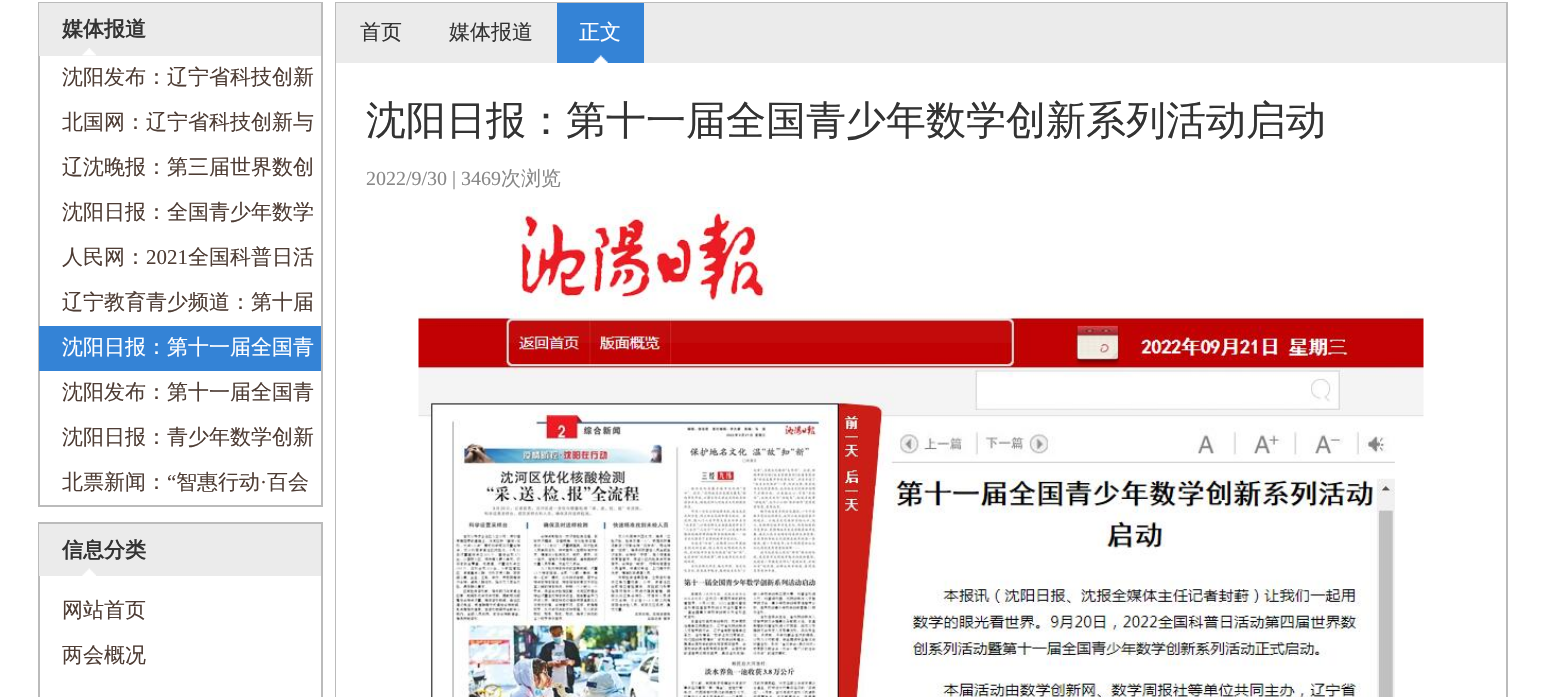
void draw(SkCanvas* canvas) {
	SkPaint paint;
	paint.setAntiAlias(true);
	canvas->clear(0xffffffff);
	paint.setStroke(true);
	paint.setStrokeWidth(2);
	paint.setColor(0xffbbbbbb);
	canvas->drawRect(SkRect::MakeXYWH(39, 3, 283, 503), paint);
	paint.setStroke(false);
	paint.setColor(0xffebebeb);
	canvas->drawRect(SkRect::MakeXYWH(39, 3, 282, 53), paint);
	canvas->drawImageRect(SkImages::DeferredFromEncodedData(SkData::MakeFromFileName("img1.png")), SkRect::MakeXYWH(82, 48, 14, 8), SkSamplingOptions());
	SkFont f1(fontMgr->matchFamilyStyle("WenQuanYi Zen Hei", SkFontStyle::Bold()), 21);
	f1.setSubpixel(true);
	paint.setColor(0xff333333);
	canvas->drawString("媒体报道", 62, 36, f1, paint);
	SkFont f2(fontMgr->matchFamilyStyle("WenQuanYi Zen Hei", SkFontStyle(500, SkFontStyle::kNormal_Width, SkFontStyle::kUpright_Slant)), 21);
	f2.setSubpixel(true);
	paint.setColor(0xff4e3d35);
	canvas->drawString("沈阳发布：辽宁省科技创新", 62, 84, f2, paint);
	canvas->drawString("北国网：辽宁省科技创新与", 62, 129, f2, paint);
	canvas->drawString("辽沈晚报：第三届世界数创", 62, 174, f2, paint);
	canvas->drawString("沈阳日报：全国青少年数学", 62, 219, f2, paint);
	canvas->drawString("人民网：", 62, 264, f2, paint);
	SkFont f3(fontMgr->matchFamilyStyle("Liberation Serif", SkFontStyle::Normal()), 21);
	f3.setSubpixel(true);
	canvas->drawString("2021", 146, 264, f3, paint);
	canvas->drawString("全国科普日活", 188, 264, f2, paint);
	canvas->drawString("辽宁教育青少频道：第十届", 62, 309, f2, paint);
	paint.setColor(0xff3483d6);
	canvas->drawRect(SkRect::MakeXYWH(39, 326, 282, 45), paint);
	paint.setColor(0xffffffff);
	canvas->drawString("沈阳日报：第十一届全国青", 62, 354, f2, paint);
	paint.setColor(0xff4e3d35);
	canvas->drawString("沈阳发布：第十一届全国青", 62, 399, f2, paint);
	canvas->drawString("沈阳日报：青少年数学创新", 62, 444, f2, paint);
	canvas->drawString("北票新闻：", 62, 489, f2, paint);
	canvas->drawString("“", 167, 489, f3, paint);
	canvas->drawString("智惠行动", 176, 489, f2, paint);
	canvas->drawString("百会", 267, 489, f2, paint);
	canvas->drawString("·", 260, 489, f3, paint);
	paint.setStroke(true);
	paint.setColor(0xffbbbbbb);
	canvas->drawRect(SkRect::MakeXYWH(39, 523, 283, 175), paint);
	paint.setStroke(false);
	paint.setColor(0xffebebeb);
	canvas->drawRect(SkRect::MakeXYWH(39, 524, 282, 52), paint);
	canvas->drawImageRect(SkImages::DeferredFromEncodedData(SkData::MakeFromFileName("img2.png")), SkRect::MakeXYWH(82, 568, 14, 8), SkSamplingOptions());
	paint.setColor(0xff333333);
	canvas->drawString("信息分类", 62, 557, f1, paint);
	paint.setColor(0xff4e3d35);
	canvas->drawString("网站首页", 62, 617, f2, paint);
	canvas->drawString("两会概况", 62, 662, f2, paint);
	paint.setStroke(true);
	paint.setColor(0xffbbbbbb);
	canvas->drawRect(SkRect::MakeXYWH(336, 3, 1171, 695), paint);
	paint.setStroke(false);
	paint.setColor(0xffffffff);
	canvas->drawRect(SkRect::MakeXYWH(336, 63, 1, 634), paint);
	paint.setColor(0xffebebeb);
	canvas->drawRect(SkRect::MakeXYWH(336, 3, 1170, 60), paint);
	paint.setColor(0xff333333);
	canvas->drawString("首页", 360, 39, f2, paint);
	canvas->drawString("媒体报道", 449, 39, f2, paint);
	paint.setColor(0xff3483d6);
	canvas->drawRect(SkRect::MakeXYWH(557, 3, 87, 60), paint);
	canvas->drawImageRect(SkImages::DeferredFromEncodedData(SkData::MakeFromFileName("img3.png")), SkRect::MakeXYWH(593, 55, 15, 8), SkSamplingOptions());
	paint.setColor(0xffffffff);
	canvas->drawString("正文", 579, 39, f2, paint);
	SkFont f4(fontMgr->matchFamilyStyle("WenQuanYi Zen Hei", SkFontStyle(500, SkFontStyle::kNormal_Width, SkFontStyle::kUpright_Slant)), 40);
	f4.setSubpixel(true);
	paint.setColor(0xff333333);
	canvas->drawString("沈阳日报：第十一届全国青少年数学创新系列活动启动", 366, 134, f4, paint);
	SkFont f5(fontMgr->matchFamilyStyle("Liberation Serif", SkFontStyle::Normal()), 20);
	f5.setSubpixel(true);
	paint.setColor(0xff888888);
	canvas->drawString("2022/9/30 | 3469", 366, 185, f5, paint);
	SkFont f6(fontMgr->matchFamilyStyle("WenQuanYi Zen Hei", SkFontStyle(500, SkFontStyle::kNormal_Width, SkFontStyle::kUpright_Slant)), 20);
	f6.setSubpixel(true);
	canvas->drawString("次浏览", 501, 185, f6, paint);
	canvas->drawImageRect(SkImages::DeferredFromEncodedData(SkData::MakeFromFileName("img4.png")), SkRect::MakeXYWH(418, 207, 1006, 490), SkSamplingOptions());
}
